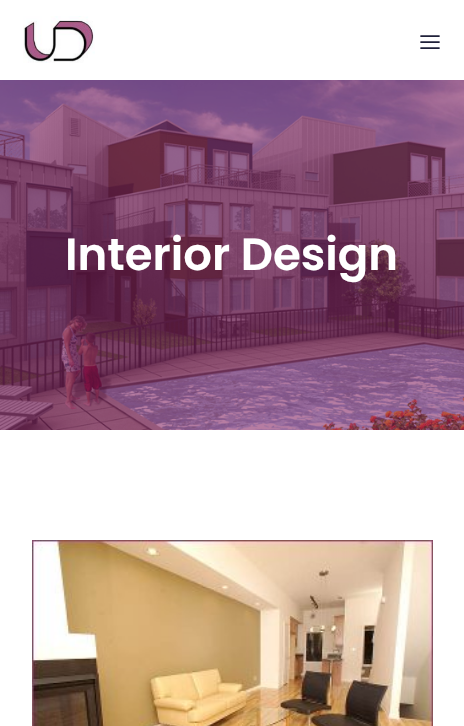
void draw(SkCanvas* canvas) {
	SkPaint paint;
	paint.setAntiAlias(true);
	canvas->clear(0xffffffff);
	canvas->drawImageRect(SkImages::DeferredFromEncodedData(SkData::MakeFromFileName("img1.png")), SkRect::MakeXYWH(23, 16, 72, 47), SkSamplingOptions());
	canvas->drawImageRect(SkImages::DeferredFromEncodedData(SkData::MakeFromFileName("img2.png")), SkRect::MakeXYWH(420, 35, 20, 14), SkSamplingOptions());
	paint.setColor(0xff7c1256);
	canvas->drawRect(SkRect::MakeXYWH(0, 80, 464, 350), paint);
	canvas->drawImageRect(SkImages::DeferredFromEncodedData(SkData::MakeFromFileName("img3.png")), SkRect::MakeXYWH(0, 80, 464, 350), SkSamplingOptions());
	SkFont f1(fontMgr->matchFamilyStyle("Poppins", SkFontStyle(600, SkFontStyle::kNormal_Width, SkFontStyle::kUpright_Slant)), 45);
	f1.setSubpixel(true);
	paint.setColor(0xffffffff);
	canvas->drawString("Interior Design", 65, 270, f1, paint);
	canvas->drawImageRect(SkImages::DeferredFromEncodedData(SkData::MakeFromFileName("img4.png")), SkRect::MakeXYWH(32, 540, 401, 186), SkSamplingOptions());
}
